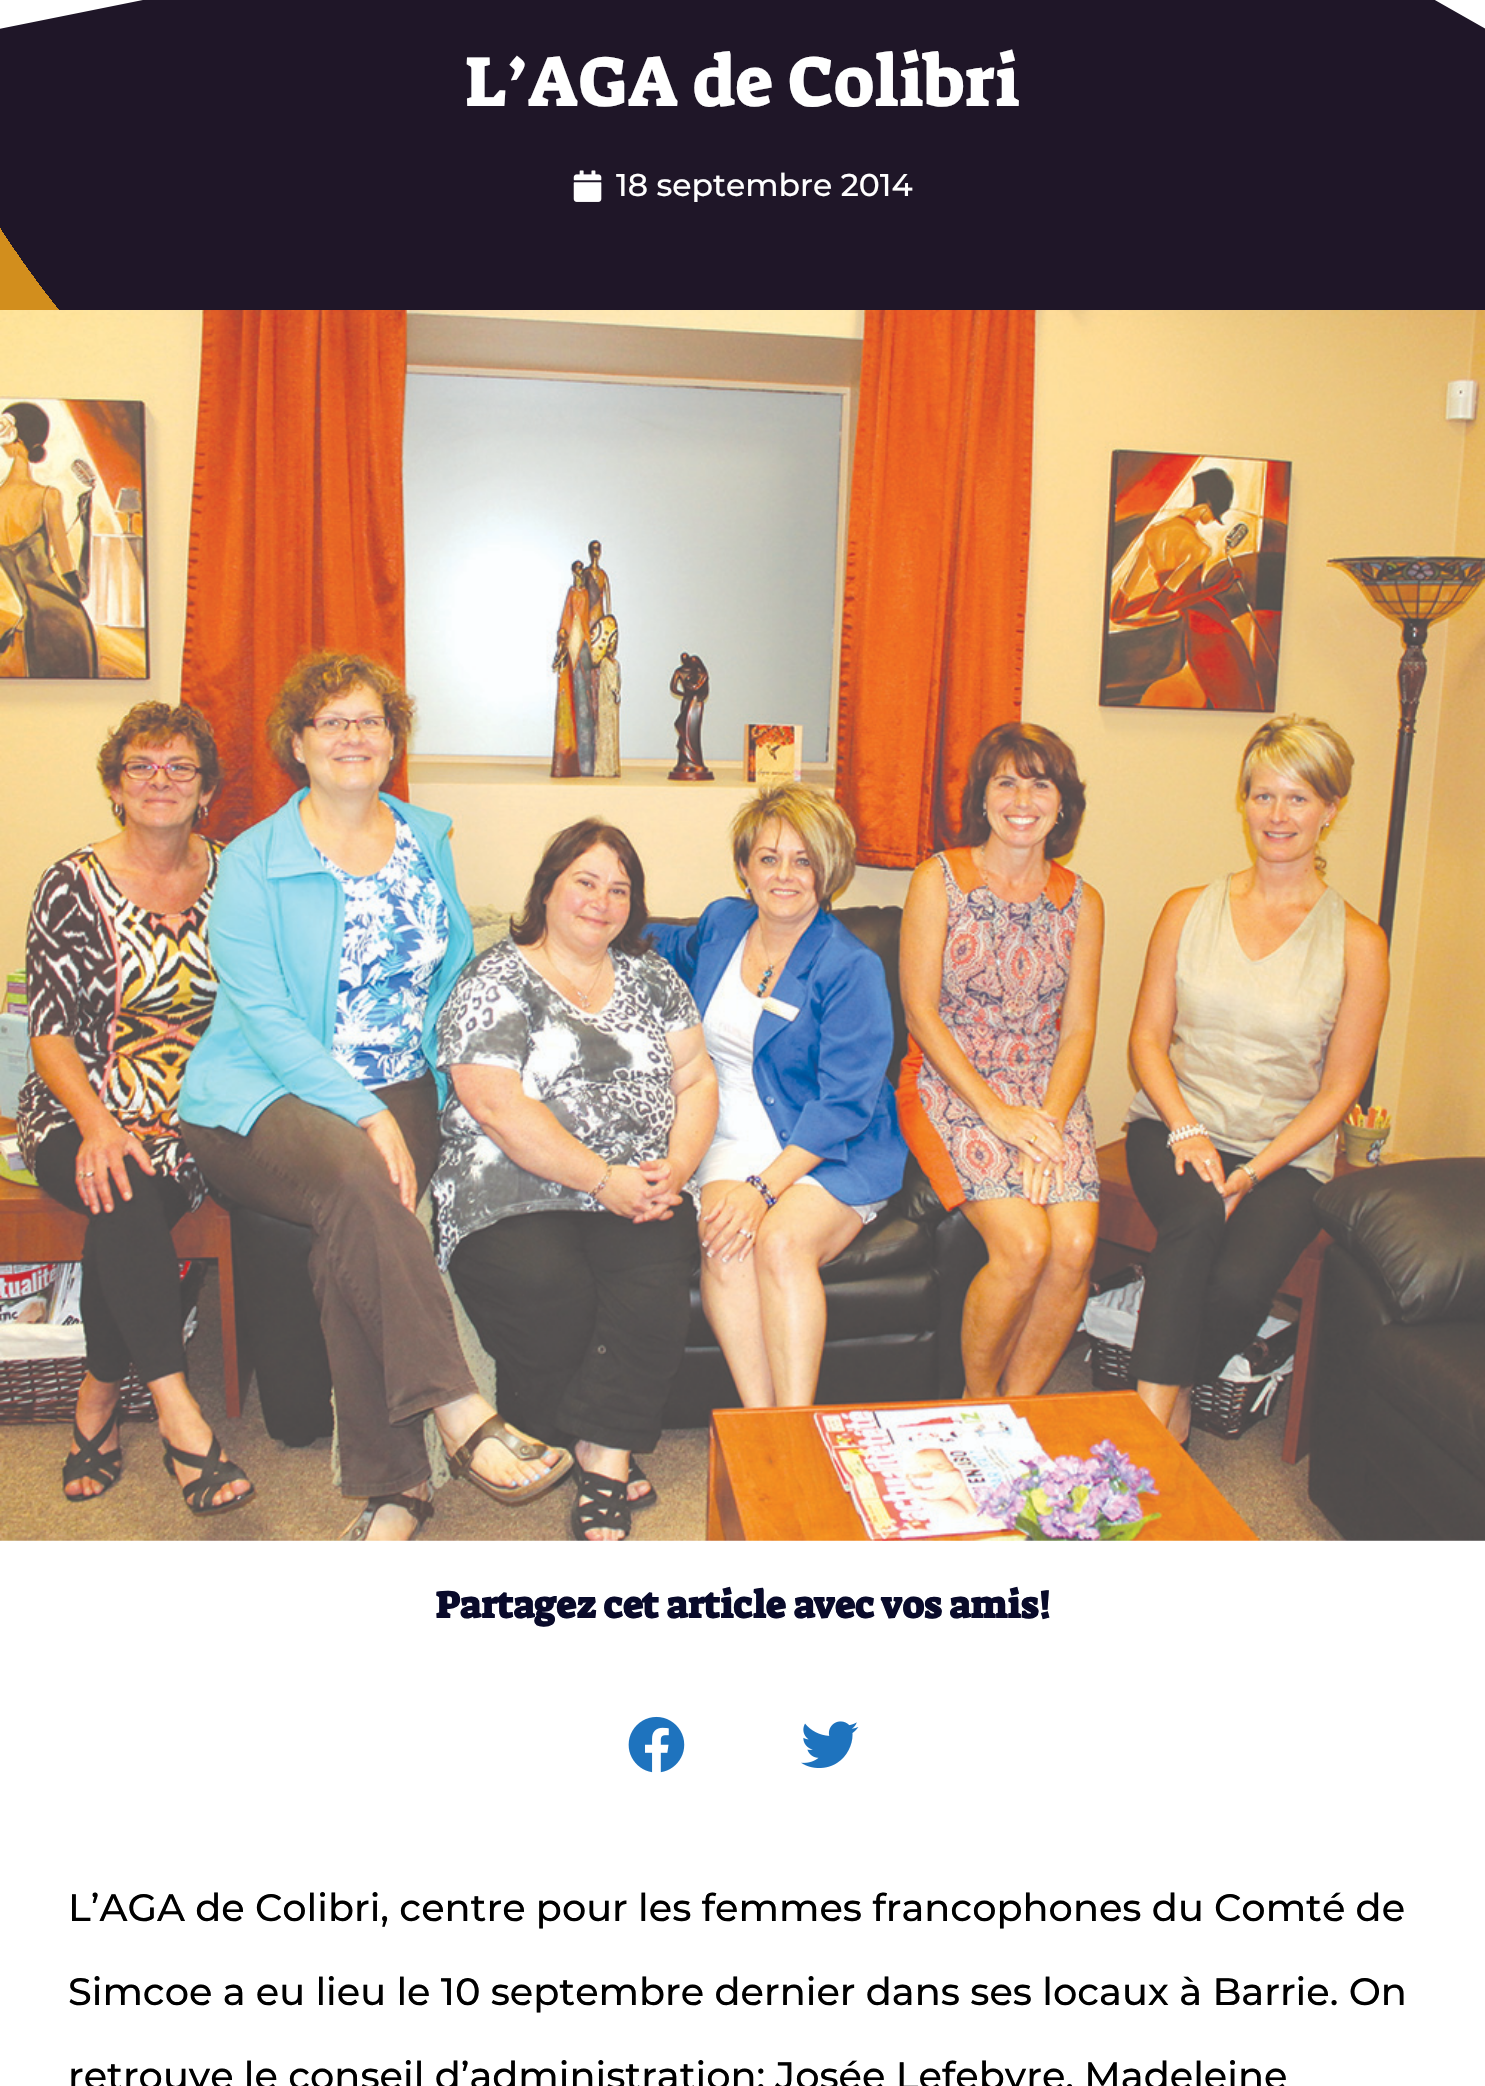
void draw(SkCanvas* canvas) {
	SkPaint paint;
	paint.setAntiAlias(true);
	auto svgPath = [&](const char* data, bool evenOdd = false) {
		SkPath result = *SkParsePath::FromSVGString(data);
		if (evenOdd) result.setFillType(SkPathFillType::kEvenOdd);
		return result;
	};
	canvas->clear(0xffffffff);
	{
		const SkColor colors[] = {0xff1f1628, 0xffd28e1d};
		const float stops[] = {0.77, 0.77};
		SkMatrix m = SkMatrix::Translate(1485, -202).preScale(2100, 1410);
		paint.setShader(SkGradientShader::MakeRadial({0, 0}, 1, colors, stops, 2, SkTileMode::kClamp, 0, &m));
		paint.setAlpha(255);
	}
	canvas->drawRect(SkRect::MakeXYWH(0, 0, 1485, 310), paint);
	paint.setShader(nullptr);
	paint.setColor(0xffffffff);
	canvas->drawPath(svgPath("M1096-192L-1 29V-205H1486V29Z"), paint);
	SkFont f1(fontMgr->matchFamilyStyle("Suez One", SkFontStyle::Normal()), 72);
	f1.setSubpixel(true);
	canvas->drawString("L’AGA de Colibri", 465, 106, f1, paint);
	canvas->drawImageRect(SkImages::DeferredFromEncodedData(SkData::MakeFromFileName("img1.png")), SkRect::MakeXYWH(573, 170, 29, 32), SkSamplingOptions());
	SkFont f2(fontMgr->matchFamilyStyle("Montserrat", SkFontStyle(500, SkFontStyle::kNormal_Width, SkFontStyle::kUpright_Slant)), 31.5);
	f2.setSubpixel(true);
	canvas->drawString("18 septembre 2014", 616, 196, f2, paint);
	canvas->drawImageRect(SkImages::DeferredFromEncodedData(SkData::MakeFromFileName("img2.png")), SkRect::MakeXYWH(0, 310, 1485, 1231), SkSamplingOptions());
	SkFont f3(fontMgr->matchFamilyStyle("Suez One", SkFontStyle::Bold()), 38.25);
	f3.setSubpixel(true);
	paint.setColor(0xff090a2a);
	canvas->drawString("Partagez cet article avec vos amis!", 435, 1618, f3, paint);
	canvas->drawImageRect(SkImages::DeferredFromEncodedData(SkData::MakeFromFileName("img3.png")), SkRect::MakeXYWH(628, 1716, 57, 57), SkSamplingOptions());
	canvas->drawImageRect(SkImages::DeferredFromEncodedData(SkData::MakeFromFileName("img4.png")), SkRect::MakeXYWH(801, 1721, 58, 47), SkSamplingOptions());
	SkFont f4(fontMgr->matchFamilyStyle("Montserrat", SkFontStyle(500, SkFontStyle::kNormal_Width, SkFontStyle::kUpright_Slant)), 38.25);
	f4.setSubpixel(true);
	paint.setColor(0xff000000);
	canvas->drawString("L’AGA de Colibri, centre pour les femmes francophones du Comté de", 68, 1921, f4, paint);
	canvas->drawString("Simcoe a eu lieu le 10 septembre dernier dans ses locaux à Barrie. On", 68, 2005, f4, paint);
	canvas->drawString("retrouve le conseil d’administration: Josée Lefebvre, Madeleine", 68, 2089, f4, paint);
}
